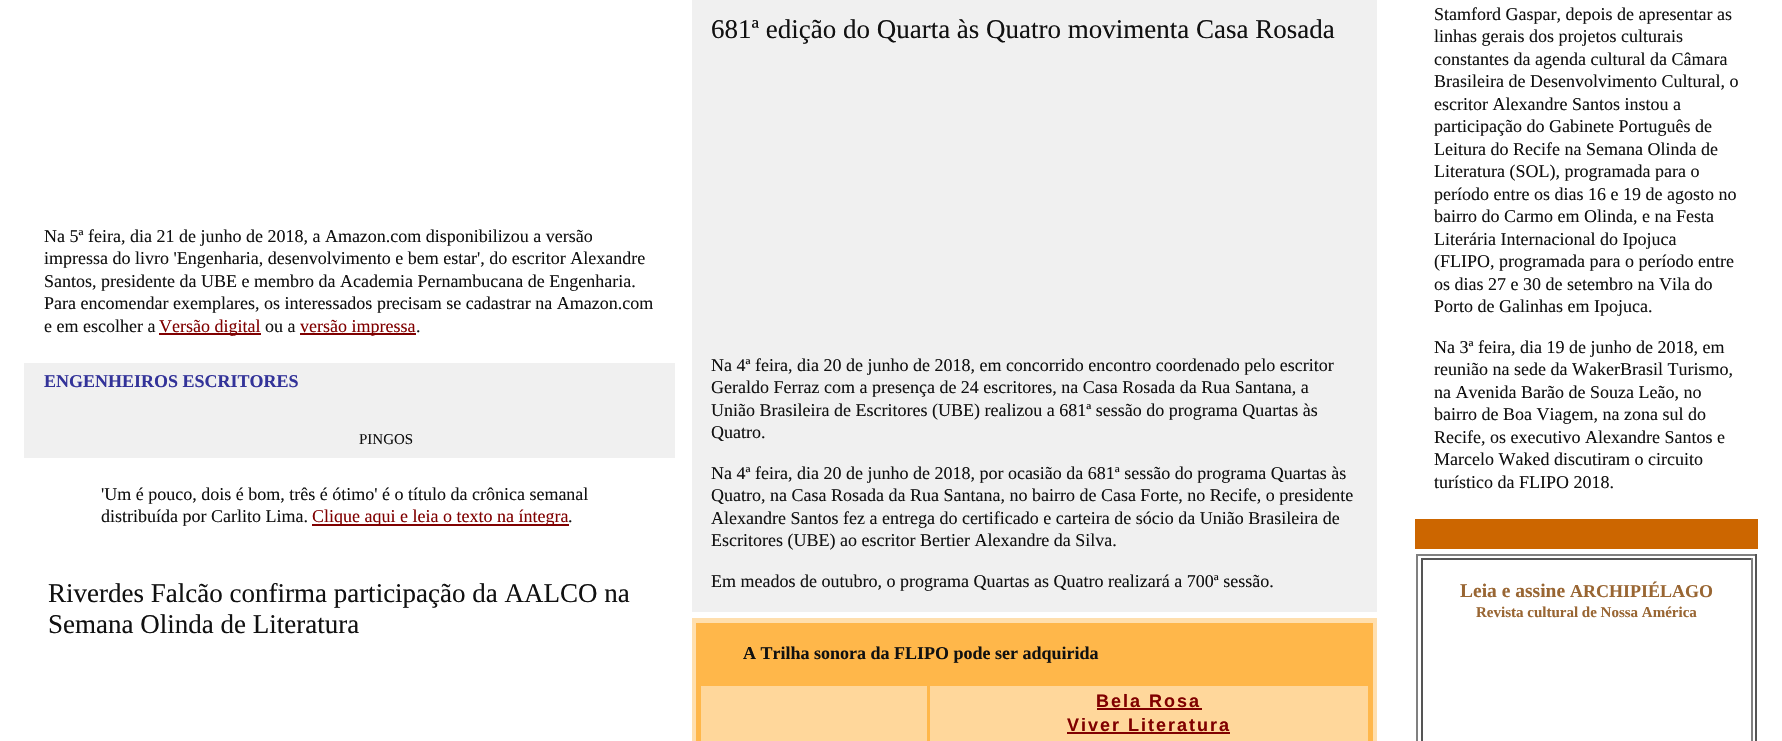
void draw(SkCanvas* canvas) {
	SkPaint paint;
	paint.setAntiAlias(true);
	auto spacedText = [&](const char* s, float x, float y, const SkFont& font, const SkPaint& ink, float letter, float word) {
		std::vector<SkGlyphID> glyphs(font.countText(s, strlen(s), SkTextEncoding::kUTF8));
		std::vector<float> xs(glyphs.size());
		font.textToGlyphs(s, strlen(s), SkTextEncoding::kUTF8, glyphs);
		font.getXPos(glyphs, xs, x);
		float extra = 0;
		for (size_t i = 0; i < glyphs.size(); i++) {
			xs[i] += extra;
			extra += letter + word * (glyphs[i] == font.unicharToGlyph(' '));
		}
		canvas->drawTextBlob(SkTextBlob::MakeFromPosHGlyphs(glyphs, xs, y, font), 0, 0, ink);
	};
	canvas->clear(0xffffffff);
	SkFont f1(fontMgr->matchFamilyStyle("Liberation Serif", SkFontStyle::Normal()), 18);
	f1.setSubpixel(true);
	paint.setColor(0xff111111);
	canvas->drawString("Na 5ª feira, dia 21 de junho de 2018, a Amazon.com disponibilizou a versão", 44, 242, f1, paint);
	canvas->drawString("impressa do livro 'Engenharia, desenvolvimento e bem estar', do escritor Alexandre", 44, 264, f1, paint);
	canvas->drawString("Santos, presidente da UBE e membro da Academia Pernambucana de Engenharia.", 44, 287, f1, paint);
	canvas->drawString("Para encomendar exemplares, os interessados precisam se cadastrar na Amazon.com", 44, 309, f1, paint);
	canvas->drawString("e em escolher a", 44, 332, f1, paint);
	paint.setColor(0xff800000);
	canvas->drawRect(SkRect::MakeXYWH(159, 333, 102, 2), paint);
	canvas->drawString("Versão digital", 159, 332, f1, paint);
	paint.setColor(0xff111111);
	canvas->drawString("ou a", 265, 332, f1, paint);
	paint.setColor(0xff800000);
	canvas->drawRect(SkRect::MakeXYWH(300, 333, 116, 2), paint);
	canvas->drawString("versão impressa", 300, 332, f1, paint);
	paint.setColor(0xff111111);
	canvas->drawString(".", 416, 332, f1, paint);
	paint.setColor(0xfff0f0f0);
	canvas->drawRect(SkRect::MakeXYWH(24, 363, 651, 95), paint);
	SkFont f2(fontMgr->matchFamilyStyle("Liberation Serif", SkFontStyle::Bold()), 18);
	f2.setSubpixel(true);
	paint.setColor(0xff333399);
	canvas->drawString("ENGENHEIROS ESCRITORES", 44, 387, f2, paint);
	SkFont f3(fontMgr->matchFamilyStyle("Liberation Serif", SkFontStyle::Normal()), 15);
	f3.setSubpixel(true);
	paint.setColor(0xff111111);
	canvas->drawString("PINGOS", 359, 444, f3, paint);
	canvas->drawString("'Um é pouco, dois é bom, três é ótimo' é o título da crônica semanal", 101, 500, f1, paint);
	canvas->drawString("distribuída por Carlito Lima.", 101, 522, f1, paint);
	paint.setColor(0xff800000);
	canvas->drawRect(SkRect::MakeXYWH(312, 524, 257, 2), paint);
	canvas->drawString("Clique aqui e leia o texto na íntegra", 312, 522, f1, paint);
	paint.setColor(0xff111111);
	canvas->drawString(".", 568, 522, f1, paint);
	SkFont f4(fontMgr->matchFamilyStyle("Liberation Serif", SkFontStyle::Normal()), 27);
	f4.setSubpixel(true);
	canvas->drawString("Riverdes Falcão confirma participação da AALCO na", 48, 602, f4, paint);
	canvas->drawString("Semana Olinda de Literatura", 48, 633, f4, paint);
	paint.setColor(0xfff0f0f0);
	canvas->drawRect(SkRect::MakeXYWH(692, 0, 685, 612), paint);
	paint.setColor(0xff111111);
	canvas->drawString("681ª edição do Quarta às Quatro movimenta Casa Rosada", 711, 38, f4, paint);
	canvas->drawString("Na 4ª feira, dia 20 de junho de 2018, em concorrido encontro coordenado pelo escritor", 711, 371, f1, paint);
	canvas->drawString("Geraldo Ferraz com a presença de 24 escritores, na Casa Rosada da Rua Santana, a", 711, 393, f1, paint);
	canvas->drawString("União Brasileira de Escritores (UBE) realizou a 681ª sessão do programa Quartas às", 711, 416, f1, paint);
	canvas->drawString("Quatro.", 711, 438, f1, paint);
	canvas->drawString("Na 4ª feira, dia 20 de junho de 2018, por ocasião da 681ª sessão do programa Quartas às", 711, 479, f1, paint);
	canvas->drawString("Quatro, na Casa Rosada da Rua Santana, no bairro de Casa Forte, no Recife, o presidente", 711, 501, f1, paint);
	canvas->drawString("Alexandre Santos fez a entrega do certificado e carteira de sócio da União Brasileira de", 711, 524, f1, paint);
	canvas->drawString("Escritores (UBE) ao escritor Bertier Alexandre da Silva.", 711, 546, f1, paint);
	canvas->drawString("Em meados de outubro, o programa Quartas as Quatro realizará a 700ª sessão.", 711, 587, f1, paint);
	paint.setColor(0xffffdfae);
	canvas->drawRect(SkRect::MakeXYWH(692, 618, 685, 123), paint);
	paint.setColor(0xffffb74a);
	canvas->drawRect(SkRect::MakeXYWH(696, 623, 677, 118), paint);
	paint.setColor(0xff111111);
	canvas->drawString("A Trilha sonora da FLIPO pode ser adquirida", 743, 659, f2, paint);
	paint.setColor(0xffffd79b);
	canvas->drawRect(SkRect::MakeXYWH(701, 686, 226, 55), paint);
	canvas->drawRect(SkRect::MakeXYWH(930, 686, 438, 55), paint);
	SkFont f5(fontMgr->matchFamilyStyle("Liberation Sans", SkFontStyle::Bold()), 18);
	f5.setSubpixel(true);
	paint.setColor(0xff800000);
	spacedText("Bela Rosa", 1096, 707, f5, paint, 2, 0);
	canvas->drawRect(SkRect::MakeXYWH(1097, 708, 105, 2), paint);
	spacedText("Viver Literatura", 1067, 731, f5, paint, 2, 0);
	canvas->drawRect(SkRect::MakeXYWH(1067, 732, 163, 2), paint);
	paint.setColor(0xff111111);
	canvas->drawString("Stamford Gaspar, depois de apresentar as", 1434, 20, f1, paint);
	canvas->drawString("linhas gerais dos projetos culturais", 1434, 42, f1, paint);
	canvas->drawString("constantes da agenda cultural da Câmara", 1434, 65, f1, paint);
	canvas->drawString("Brasileira de Desenvolvimento Cultural, o", 1434, 87, f1, paint);
	canvas->drawString("escritor Alexandre Santos instou a", 1434, 110, f1, paint);
	canvas->drawString("participação do Gabinete Português de", 1434, 132, f1, paint);
	canvas->drawString("Leitura do Recife na Semana Olinda de", 1434, 155, f1, paint);
	canvas->drawString("Literatura (SOL), programada para o", 1434, 177, f1, paint);
	canvas->drawString("período entre os dias 16 e 19 de agosto no", 1434, 200, f1, paint);
	canvas->drawString("bairro do Carmo em Olinda, e na Festa", 1434, 222, f1, paint);
	canvas->drawString("Literária Internacional do Ipojuca", 1434, 245, f1, paint);
	canvas->drawString("(FLIPO, programada para o período entre", 1434, 267, f1, paint);
	canvas->drawString("os dias 27 e 30 de setembro na Vila do", 1434, 290, f1, paint);
	canvas->drawString("Porto de Galinhas em Ipojuca.", 1434, 312, f1, paint);
	canvas->drawString("Na 3ª feira, dia 19 de junho de 2018, em", 1434, 353, f1, paint);
	canvas->drawString("reunião na sede da WakerBrasil Turismo,", 1434, 375, f1, paint);
	canvas->drawString("na Avenida Barão de Souza Leão, no", 1434, 398, f1, paint);
	canvas->drawString("bairro de Boa Viagem, na zona sul do", 1434, 420, f1, paint);
	canvas->drawString("Recife, os executivo Alexandre Santos e", 1434, 443, f1, paint);
	canvas->drawString("Marcelo Waked discutiram o circuito", 1434, 465, f1, paint);
	canvas->drawString("turístico da FLIPO 2018.", 1434, 488, f1, paint);
	paint.setColor(0xffcc6600);
	canvas->drawRect(SkRect::MakeXYWH(1415, 519, 343, 30), paint);
	paint.setColor(0xff808080);
	canvas->drawRect(SkRect::MakeXYWH(1416, 554, 341, 2), paint);
	paint.setColor(0xff555555);
	canvas->drawRect(SkRect::MakeXYWH(1755, 554, 2, 187), paint);
	paint.setColor(0xff808080);
	canvas->drawRect(SkRect::MakeXYWH(1416, 554, 2, 187), paint);
	paint.setColor(0xff555555);
	canvas->drawRect(SkRect::MakeXYWH(1421, 558, 331, 2), paint);
	paint.setColor(0xff808080);
	canvas->drawRect(SkRect::MakeXYWH(1751, 558, 2, 183), paint);
	paint.setColor(0xff555555);
	canvas->drawRect(SkRect::MakeXYWH(1421, 558, 2, 183), paint);
	SkFont f6(fontMgr->matchFamilyStyle("Liberation Serif", SkFontStyle::Bold()), 19.5);
	f6.setSubpixel(true);
	paint.setColor(0xff996633);
	canvas->drawString("Leia e assine", 1460, 597, f6, paint);
	canvas->drawString("ARCHIPIÉLAGO", 1570, 597, f2, paint);
	SkFont f7(fontMgr->matchFamilyStyle("Liberation Serif", SkFontStyle::Bold()), 15);
	f7.setSubpixel(true);
	canvas->drawString("Revista cultural de Nossa América", 1476, 617, f7, paint);
}
